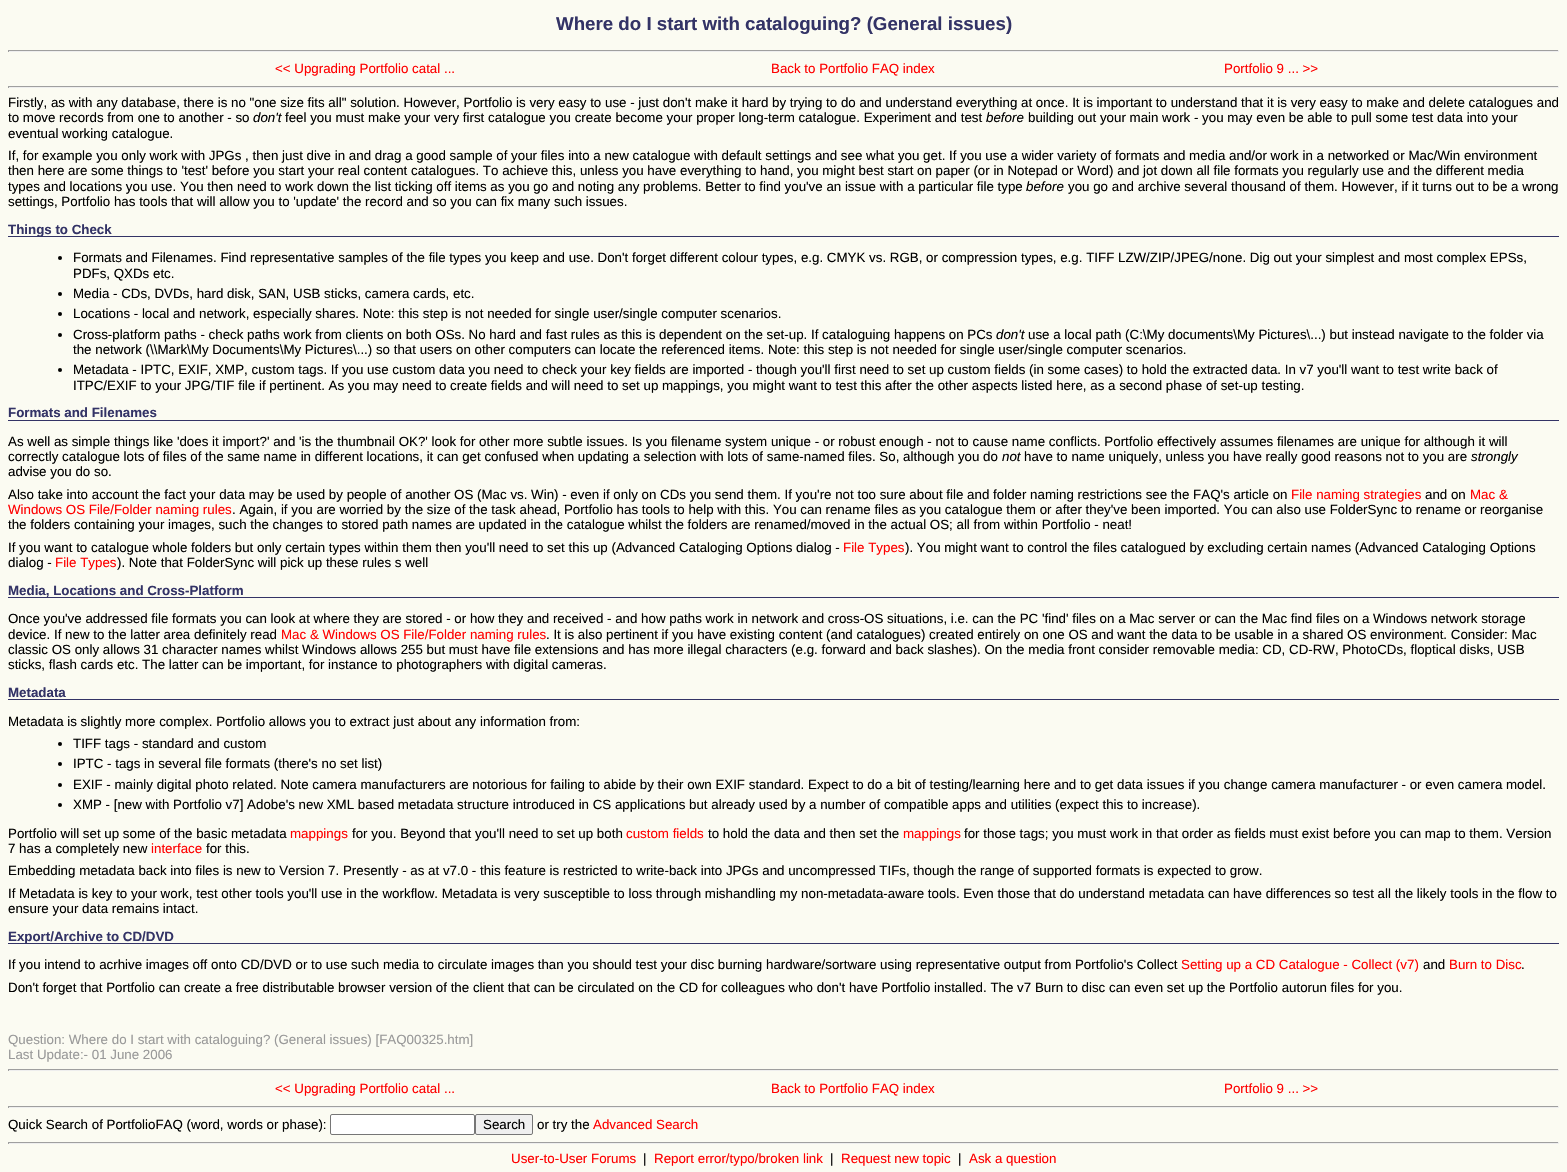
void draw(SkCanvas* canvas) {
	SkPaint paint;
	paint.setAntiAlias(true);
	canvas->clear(0xfffbfbf2);
	SkFont f1(fontMgr->matchFamilyStyle("Liberation Sans", SkFontStyle::Bold()), 18.7);
	f1.setSubpixel(true);
	paint.setColor(0xff333366);
	canvas->drawString("Where do I start with cataloguing? (General issues)", 556, 30, f1, paint);
	paint.setColor(0xff9f9f9f);
	canvas->drawRect(SkRect::MakeXYWH(8, 50, 1551, 1), paint);
	paint.setColor(0xffeeeeee);
	canvas->drawRect(SkRect::MakeXYWH(1558, 50, 1, 2), paint);
	canvas->drawRect(SkRect::MakeXYWH(8, 51, 1551, 1), paint);
	paint.setColor(0xff9f9f9f);
	canvas->drawRect(SkRect::MakeXYWH(8, 50, 1, 2), paint);
	SkFont f2(fontMgr->matchFamilyStyle("Liberation Sans", SkFontStyle::Normal()), 13.33);
	f2.setSubpixel(true);
	paint.setColor(0xffff0000);
	canvas->drawString("<< Upgrading Portfolio catal ...", 275, 73, f2, paint);
	canvas->drawString("Back to Portfolio FAQ index", 771, 73, f2, paint);
	canvas->drawString("Portfolio 9 ... >>", 1224, 73, f2, paint);
	paint.setColor(0xff9f9f9f);
	canvas->drawRect(SkRect::MakeXYWH(8, 86, 1551, 1), paint);
	paint.setColor(0xffeeeeee);
	canvas->drawRect(SkRect::MakeXYWH(1558, 86, 1, 2), paint);
	canvas->drawRect(SkRect::MakeXYWH(8, 87, 1551, 1), paint);
	paint.setColor(0xff9f9f9f);
	canvas->drawRect(SkRect::MakeXYWH(8, 86, 1, 2), paint);
	paint.setColor(0xff000000);
	canvas->drawString("Firstly, as with any database, there is no \"one size fits all\" solution. However, Portfolio is very easy to use - just don't make it hard by trying to do and understand everything at once. It is important to understand that it is very easy to make and delete catalogues and", 8, 107, f2, paint);
	canvas->drawString("to move records from one to another - so", 8, 122, f2, paint);
	SkFont f3(fontMgr->matchFamilyStyle("Liberation Sans", SkFontStyle::Italic()), 13.33);
	f3.setSubpixel(true);
	canvas->drawString("don't", 253, 122, f3, paint);
	canvas->drawString("feel you must make your very first catalogue you create become your proper long-term catalogue. Experiment and test", 285, 122, f2, paint);
	canvas->drawString("before", 986, 122, f3, paint);
	canvas->drawString("building out your main work - you may even be able to pull some test data into your", 1028, 122, f2, paint);
	canvas->drawString("eventual working catalogue.", 8, 138, f2, paint);
	canvas->drawString("If, for example you only work with JPGs , then just dive in and drag a good sample of your files into a new catalogue with default settings and see what you get. If you use a wider variety of formats and media and/or work in a networked or Mac/Win environment", 8, 160, f2, paint);
	canvas->drawString("then here are some things to 'test' before you start your real content catalogues. To achieve this, unless you have everything to hand, you might best start on paper (or in Notepad or Word) and jot down all file formats you regularly use and the different media", 8, 175, f2, paint);
	canvas->drawString("types and locations you use. You then need to work down the list ticking off items as you go and noting any problems. Better to find you've an issue with a particular file type", 8, 191, f2, paint);
	canvas->drawString("before", 1026, 191, f3, paint);
	canvas->drawString("you go and archive several thousand of them. However, if it turns out to be a wrong", 1068, 191, f2, paint);
	canvas->drawString("settings, Portfolio has tools that will allow you to 'update' the record and so you can fix many such issues.", 8, 206, f2, paint);
	paint.setColor(0xff333366);
	canvas->drawRect(SkRect::MakeXYWH(8, 236, 1551, 1), paint);
	SkFont f4(fontMgr->matchFamilyStyle("Liberation Sans", SkFontStyle::Bold()), 13.33);
	f4.setSubpixel(true);
	canvas->drawString("Things to Check", 8, 234, f4, paint);
	paint.setColor(0xff000000);
	canvas->drawCircle(60, 258, 2, paint);
	canvas->drawString("Formats and Filenames. Find representative samples of the file types you keep and use. Don't forget different colour types, e.g. CMYK vs. RGB, or compression types, e.g. TIFF LZW/ZIP/JPEG/none. Dig out your simplest and most complex EPSs,", 73, 262, f2, paint);
	canvas->drawString("PDFs, QXDs etc.", 73, 278, f2, paint);
	canvas->drawCircle(60, 294, 2, paint);
	canvas->drawString("Media - CDs, DVDs, hard disk, SAN, USB sticks, camera cards, etc.", 73, 298, f2, paint);
	canvas->drawCircle(60, 314, 2, paint);
	canvas->drawString("Locations - local and network, especially shares. Note: this step is not needed for single user/single computer scenarios.", 73, 318, f2, paint);
	canvas->drawCircle(60, 335, 2, paint);
	canvas->drawString("Cross-platform paths - check paths work from clients on both OSs. No hard and fast rules as this is dependent on the set-up. If cataloguing happens on PCs", 73, 339, f2, paint);
	canvas->drawString("don't", 996, 339, f3, paint);
	canvas->drawString("use a local path (C:\\My documents\\My Pictures\\...) but instead navigate to the folder via", 1028, 339, f2, paint);
	canvas->drawString("the network (\\\\Mark\\My Documents\\My Pictures\\...) so that users on other computers can locate the referenced items. Note: this step is not needed for single user/single computer scenarios.", 73, 354, f2, paint);
	canvas->drawCircle(60, 370, 2, paint);
	canvas->drawString("Metadata - IPTC, EXIF, XMP, custom tags. If you use custom data you need to check your key fields are imported - though you'll first need to set up custom fields (in some cases) to hold the extracted data. In v7 you'll want to test write back of", 73, 374, f2, paint);
	canvas->drawString("ITPC/EXIF to your JPG/TIF file if pertinent. As you may need to create fields and will need to set up mappings, you might want to test this after the other aspects listed here, as a second phase of set-up testing.", 73, 390, f2, paint);
	paint.setColor(0xff333366);
	canvas->drawRect(SkRect::MakeXYWH(8, 420, 1551, 1), paint);
	canvas->drawString("Formats and Filenames", 8, 417, f4, paint);
	paint.setColor(0xff000000);
	canvas->drawString("As well as simple things like 'does it import?' and 'is the thumbnail OK?' look for other more subtle issues. Is you filename system unique - or robust enough - not to cause name conflicts. Portfolio effectively assumes filenames are unique for although it will", 8, 446, f2, paint);
	canvas->drawString("correctly catalogue lots of files of the same name in different locations, it can get confused when updating a selection with lots of same-named files. So, although you do", 8, 461, f2, paint);
	canvas->drawString("not", 1002, 461, f3, paint);
	canvas->drawString("have to name uniquely, unless you have really good reasons not to you are", 1024, 461, f2, paint);
	canvas->drawString("strongly", 1471, 461, f3, paint);
	canvas->drawString("advise you do so.", 8, 476, f2, paint);
	canvas->drawString("Also take into account the fact your data may be used by people of another OS (Mac vs. Win) - even if only on CDs you send them. If you're not too sure about file and folder naming restrictions see the FAQ's article on", 8, 499, f2, paint);
	paint.setColor(0xffff0000);
	canvas->drawString("File naming strategies", 1291, 499, f2, paint);
	paint.setColor(0xff000000);
	canvas->drawString("and on", 1425, 499, f2, paint);
	paint.setColor(0xffff0000);
	canvas->drawString("Mac &", 1470, 499, f2, paint);
	canvas->drawString("Windows OS File/Folder naming rules", 8, 514, f2, paint);
	paint.setColor(0xff000000);
	canvas->drawString(". Again, if you are worried by the size of the task ahead, Portfolio has tools to help with this. You can rename files as you catalogue them or after they've been imported. You can also use FolderSync to rename or reorganise", 232, 514, f2, paint);
	canvas->drawString("the folders containing your images, such the changes to stored path names are updated in the catalogue whilst the folders are renamed/moved in the actual OS; all from within Portfolio - neat!", 8, 529, f2, paint);
	canvas->drawString("If you want to catalogue whole folders but only certain types within them then you'll need to set this up (Advanced Cataloging Options dialog -", 8, 552, f2, paint);
	paint.setColor(0xffff0000);
	canvas->drawString("File Types", 843, 552, f2, paint);
	paint.setColor(0xff000000);
	canvas->drawString("). You might want to control the files catalogued by excluding certain names (Advanced Cataloging Options", 905, 552, f2, paint);
	canvas->drawString("dialog -", 8, 567, f2, paint);
	paint.setColor(0xffff0000);
	canvas->drawString("File Types", 55, 567, f2, paint);
	paint.setColor(0xff000000);
	canvas->drawString("). Note that FolderSync will pick up these rules s well", 117, 567, f2, paint);
	paint.setColor(0xff333366);
	canvas->drawRect(SkRect::MakeXYWH(8, 597, 1551, 1), paint);
	canvas->drawString("Media, Locations and Cross-Platform", 8, 595, f4, paint);
	paint.setColor(0xff000000);
	canvas->drawString("Once you've addressed file formats you can look at where they are stored - or how they and received - and how paths work in network and cross-OS situations, i.e. can the PC 'find' files on a Mac server or can the Mac find files on a Windows network storage", 8, 623, f2, paint);
	canvas->drawString("device. If new to the latter area definitely read", 8, 639, f2, paint);
	paint.setColor(0xffff0000);
	canvas->drawString("Mac & Windows OS File/Folder naming rules", 281, 639, f2, paint);
	paint.setColor(0xff000000);
	canvas->drawString(". It is also pertinent if you have existing content (and catalogues) created entirely on one OS and want the data to be usable in a shared OS environment. Consider: Mac", 546, 639, f2, paint);
	canvas->drawString("classic OS only allows 31 character names whilst Windows allows 255 but must have file extensions and has more illegal characters (e.g. forward and back slashes). On the media front consider removable media: CD, CD-RW, PhotoCDs, floptical disks, USB", 8, 654, f2, paint);
	canvas->drawString("sticks, flash cards etc. The latter can be important, for instance to photographers with digital cameras.", 8, 669, f2, paint);
	paint.setColor(0xff333366);
	canvas->drawRect(SkRect::MakeXYWH(8, 699, 1551, 1), paint);
	canvas->drawString("Metadata", 8, 697, f4, paint);
	paint.setColor(0xff000000);
	canvas->drawString("Metadata is slightly more complex. Portfolio allows you to extract just about any information from:", 8, 726, f2, paint);
	canvas->drawCircle(60, 744, 2, paint);
	canvas->drawString("TIFF tags - standard and custom", 73, 748, f2, paint);
	canvas->drawCircle(60, 764, 2, paint);
	canvas->drawString("IPTC - tags in several file formats (there's no set list)", 73, 768, f2, paint);
	canvas->drawCircle(60, 785, 2, paint);
	canvas->drawString("EXIF - mainly digital photo related. Note camera manufacturers are notorious for failing to abide by their own EXIF standard. Expect to do a bit of testing/learning here and to get data issues if you change camera manufacturer - or even camera model.", 73, 789, f2, paint);
	canvas->drawCircle(60, 805, 2, paint);
	canvas->drawString("XMP - [new with Portfolio v7] Adobe's new XML based metadata structure introduced in CS applications but already used by a number of compatible apps and utilities (expect this to increase).", 73, 809, f2, paint);
	canvas->drawString("Portfolio will set up some of the basic metadata", 8, 838, f2, paint);
	paint.setColor(0xffff0000);
	canvas->drawString("mappings", 290, 838, f2, paint);
	paint.setColor(0xff000000);
	canvas->drawString("for you. Beyond that you'll need to set up both", 352, 838, f2, paint);
	paint.setColor(0xffff0000);
	canvas->drawString("custom fields", 626, 838, f2, paint);
	paint.setColor(0xff000000);
	canvas->drawString("to hold the data and then set the", 708, 838, f2, paint);
	paint.setColor(0xffff0000);
	canvas->drawString("mappings", 903, 838, f2, paint);
	paint.setColor(0xff000000);
	canvas->drawString("for those tags; you must work in that order as fields must exist before you can map to them. Version", 964, 838, f2, paint);
	canvas->drawString("7 has a completely new", 8, 853, f2, paint);
	paint.setColor(0xffff0000);
	canvas->drawString("interface", 151, 853, f2, paint);
	paint.setColor(0xff000000);
	canvas->drawString("for this.", 206, 853, f2, paint);
	canvas->drawString("Embedding metadata back into files is new to Version 7. Presently - as at v7.0 - this feature is restricted to write-back into JPGs and uncompressed TIFs, though the range of supported formats is expected to grow.", 8, 875, f2, paint);
	canvas->drawString("If Metadata is key to your work, test other tools you'll use in the workflow. Metadata is very susceptible to loss through mishandling my non-metadata-aware tools. Even those that do understand metadata can have differences so test all the likely tools in the flow to", 8, 898, f2, paint);
	canvas->drawString("ensure your data remains intact.", 8, 913, f2, paint);
	paint.setColor(0xff333366);
	canvas->drawRect(SkRect::MakeXYWH(8, 943, 1551, 1), paint);
	canvas->drawString("Export/Archive to CD/DVD", 8, 941, f4, paint);
	paint.setColor(0xff000000);
	canvas->drawString("If you intend to acrhive images off onto CD/DVD or to use such media to circulate images than you should test your disc burning hardware/sortware using representative output from Portfolio's Collect", 8, 969, f2, paint);
	paint.setColor(0xffff0000);
	canvas->drawString("Setting up a CD Catalogue - Collect (v7)", 1181, 969, f2, paint);
	paint.setColor(0xff000000);
	canvas->drawString("and", 1423, 969, f2, paint);
	paint.setColor(0xffff0000);
	canvas->drawString("Burn to Disc", 1449, 969, f2, paint);
	paint.setColor(0xff000000);
	canvas->drawString(".", 1521, 969, f2, paint);
	canvas->drawString("Don't forget that Portfolio can create a free distributable browser version of the client that can be circulated on the CD for colleagues who don't have Portfolio installed. The v7 Burn to disc can even set up the Portfolio autorun files for you.", 8, 992, f2, paint);
	paint.setColor(0xff999999);
	canvas->drawString("Question: Where do I start with cataloguing? (General issues) [FAQ00325.htm]", 8, 1044, f2, paint);
	canvas->drawString("Last Update:- 01 June 2006", 8, 1059, f2, paint);
	paint.setColor(0xff9f9f9f);
	canvas->drawRect(SkRect::MakeXYWH(8, 1069, 1551, 1), paint);
	paint.setColor(0xffeeeeee);
	canvas->drawRect(SkRect::MakeXYWH(1558, 1069, 1, 2), paint);
	canvas->drawRect(SkRect::MakeXYWH(8, 1070, 1551, 1), paint);
	paint.setColor(0xff9f9f9f);
	canvas->drawRect(SkRect::MakeXYWH(8, 1069, 1, 2), paint);
	paint.setColor(0xffff0000);
	canvas->drawString("<< Upgrading Portfolio catal ...", 275, 1093, f2, paint);
	canvas->drawString("Back to Portfolio FAQ index", 771, 1093, f2, paint);
	canvas->drawString("Portfolio 9 ... >>", 1224, 1093, f2, paint);
	paint.setColor(0xff9f9f9f);
	canvas->drawRect(SkRect::MakeXYWH(8, 1106, 1551, 1), paint);
	paint.setColor(0xffeeeeee);
	canvas->drawRect(SkRect::MakeXYWH(1558, 1106, 1, 2), paint);
	canvas->drawRect(SkRect::MakeXYWH(8, 1107, 1551, 1), paint);
	paint.setColor(0xff9f9f9f);
	canvas->drawRect(SkRect::MakeXYWH(8, 1106, 1, 2), paint);
	paint.setColor(0xff000000);
	canvas->drawString("Quick Search of PortfolioFAQ (word, words or phase):", 8, 1129, f2, paint);
	paint.setColor(0xffffffff);
	canvas->drawRoundRect(SkRect::MakeXYWH(330.5, 1114.5, 144, 20), 1.5, 1.5, paint);
	paint.setStroke(true);
	paint.setStrokeWidth(1);
	paint.setColor(0xff767676);
	canvas->drawRoundRect(SkRect::MakeXYWH(330.5, 1114.5, 144, 20), 1.5, 1.5, paint);
	paint.setStroke(false);
	paint.setColor(0xffefefef);
	canvas->drawRoundRect(SkRect::MakeXYWH(475.5, 1114.5, 57, 20), 1.5, 1.5, paint);
	paint.setStroke(true);
	paint.setColor(0xff767676);
	canvas->drawRoundRect(SkRect::MakeXYWH(475.5, 1114.5, 57, 20), 1.5, 1.5, paint);
	paint.setStroke(false);
	paint.setColor(0xff000000);
	canvas->drawString("Search", 483, 1129, f2, paint);
	canvas->drawString("or try the", 537, 1129, f2, paint);
	paint.setColor(0xffff0000);
	canvas->drawString("Advanced Search", 593, 1129, f2, paint);
	paint.setColor(0xff9f9f9f);
	canvas->drawRect(SkRect::MakeXYWH(8, 1142, 1551, 1), paint);
	paint.setColor(0xffeeeeee);
	canvas->drawRect(SkRect::MakeXYWH(1558, 1142, 1, 2), paint);
	canvas->drawRect(SkRect::MakeXYWH(8, 1143, 1551, 1), paint);
	paint.setColor(0xff9f9f9f);
	canvas->drawRect(SkRect::MakeXYWH(8, 1142, 1, 2), paint);
	paint.setColor(0xffff0000);
	canvas->drawString("User-to-User Forums", 511, 1163, f2, paint);
	paint.setColor(0xff000000);
	canvas->drawString("|", 643, 1163, f2, paint);
	paint.setColor(0xffff0000);
	canvas->drawString("Report error/typo/broken link", 654, 1163, f2, paint);
	paint.setColor(0xff000000);
	canvas->drawString("|", 830, 1163, f2, paint);
	paint.setColor(0xffff0000);
	canvas->drawString("Request new topic", 841, 1163, f2, paint);
	paint.setColor(0xff000000);
	canvas->drawString("|", 958, 1163, f2, paint);
	paint.setColor(0xffff0000);
	canvas->drawString("Ask a question", 969, 1163, f2, paint);
}
